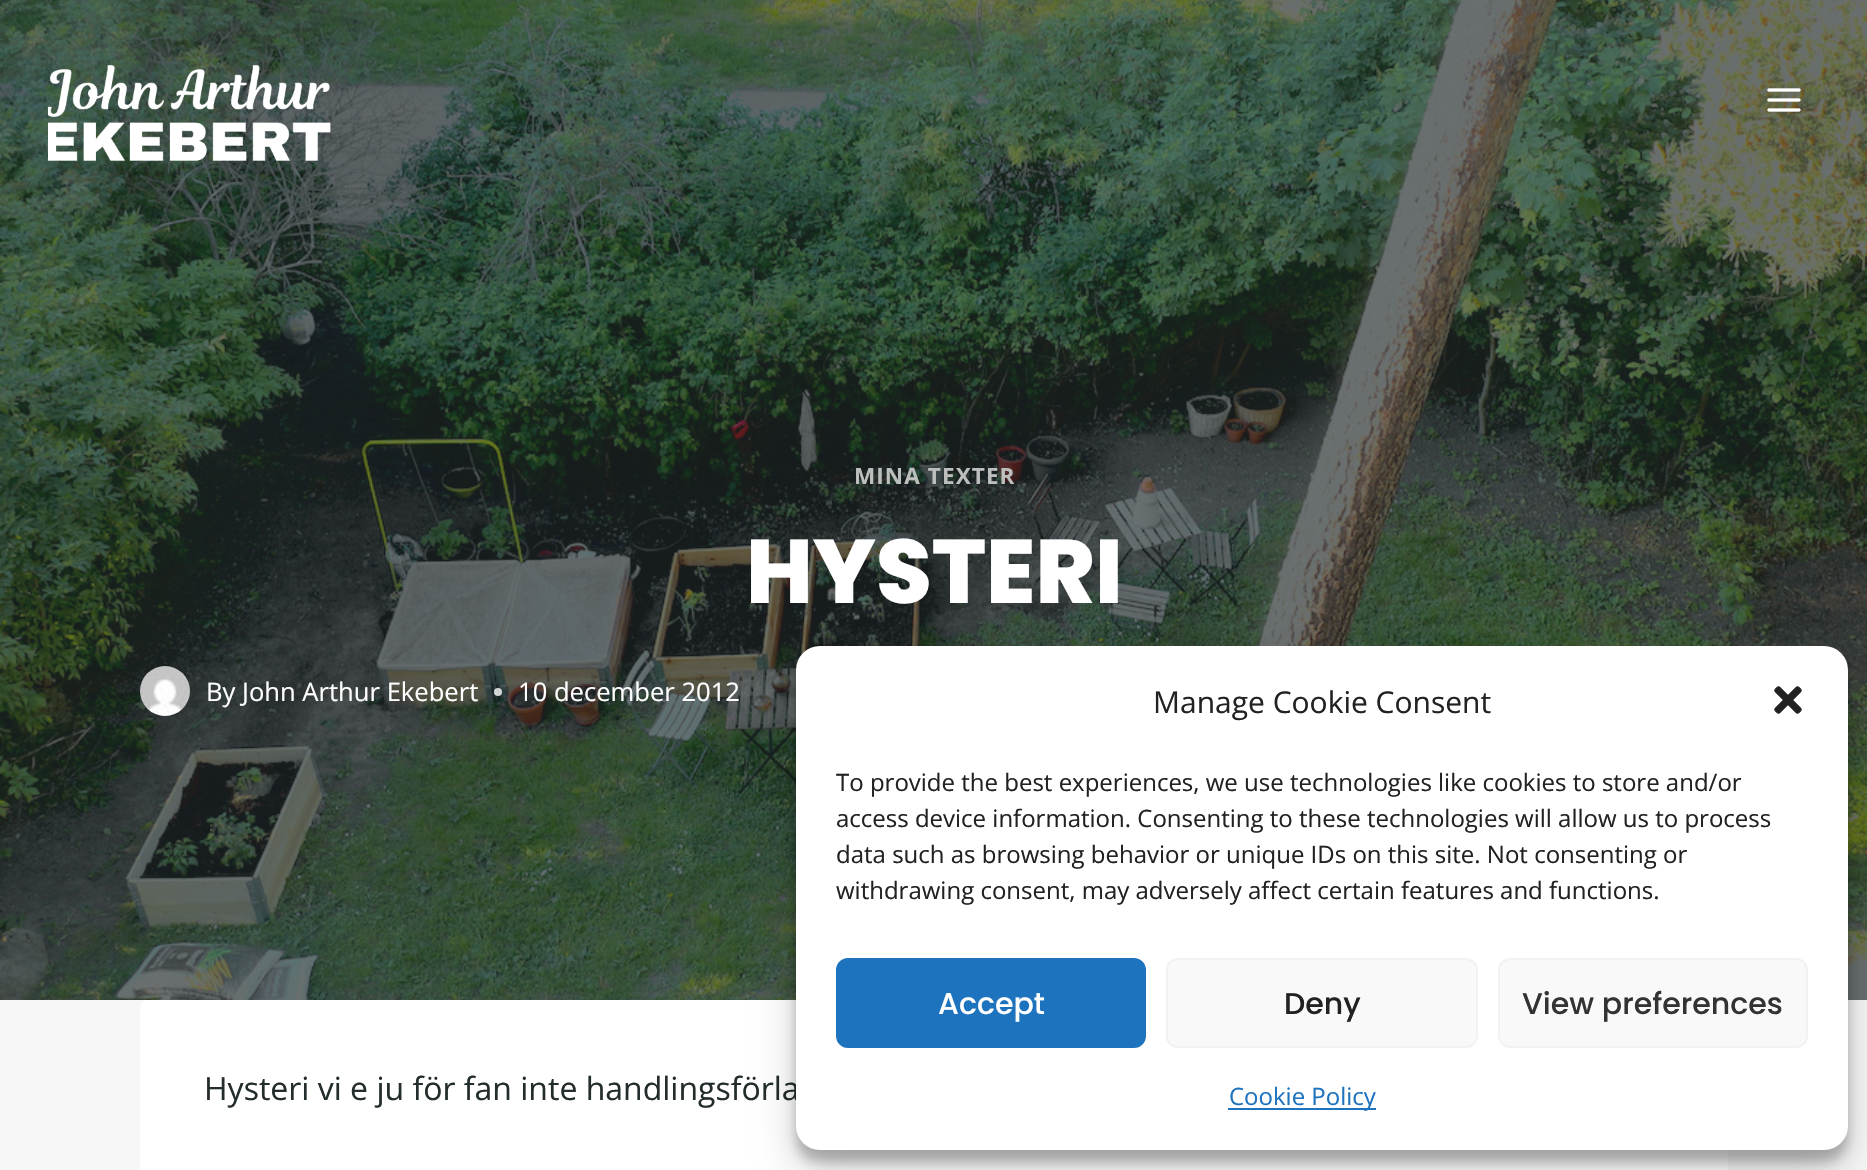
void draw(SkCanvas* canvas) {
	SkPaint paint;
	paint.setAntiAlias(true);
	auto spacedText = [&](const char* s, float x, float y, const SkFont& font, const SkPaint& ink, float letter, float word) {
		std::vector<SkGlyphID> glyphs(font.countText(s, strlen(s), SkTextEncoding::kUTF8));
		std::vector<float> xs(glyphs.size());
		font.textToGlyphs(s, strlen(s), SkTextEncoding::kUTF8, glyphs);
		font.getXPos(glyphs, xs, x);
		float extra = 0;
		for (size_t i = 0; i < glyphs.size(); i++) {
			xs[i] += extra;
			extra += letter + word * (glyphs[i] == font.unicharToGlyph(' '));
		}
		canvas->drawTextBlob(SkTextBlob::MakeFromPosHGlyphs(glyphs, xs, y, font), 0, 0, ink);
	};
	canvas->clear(0xfff7f7f7);
	canvas->drawImageRect(SkImages::DeferredFromEncodedData(SkData::MakeFromFileName("img3.png")), SkRect::MakeXYWH(0, 0, 1867, 1000), SkSamplingOptions());
	canvas->drawImageRect(SkImages::DeferredFromEncodedData(SkData::MakeFromFileName("img1.png")), SkRect::MakeXYWH(48, 64, 283, 98), SkSamplingOptions());
	canvas->drawImageRect(SkImages::DeferredFromEncodedData(SkData::MakeFromFileName("img2.png")), SkRect::MakeXYWH(1767, 88, 34, 24), SkSamplingOptions());
	SkFont f1(fontMgr->matchFamilyStyle("Open Sans", SkFontStyle::Bold()), 22.5);
	f1.setSubpixel(true);
	paint.setColor(0xffbdbfbe);
	spacedText("MINA TEXTER", 854, 484, f1, paint, 1.1, 0);
	SkFont f2(fontMgr->matchFamilyStyle("Poppins", SkFontStyle(800, SkFontStyle::kNormal_Width, SkFontStyle::kUpright_Slant)), 90);
	f2.setSubpixel(true);
	paint.setColor(0xffffffff);
	canvas->drawString("HYSTERI", 746, 603, f2, paint);
	canvas->drawImageRect(SkImages::DeferredFromEncodedData(SkData::MakeFromFileName("img4.png")), SkRect::MakeXYWH(140, 666, 50, 50), SkSamplingOptions());
	SkFont f3(fontMgr->matchFamilyStyle("Open Sans", SkFontStyle::Normal()), 25.6);
	f3.setSubpixel(true);
	canvas->drawString("By John Arthur Ekebert", 206, 701, f3, paint);
	paint.setColor(0xccffffff);
	canvas->drawCircle(498, 692, 4, paint);
	paint.setColor(0xffffffff);
	canvas->drawString("10 december 2012", 518, 701, f3, paint);
	canvas->drawRoundRect(SkRect::MakeXYWH(140, 1000, 1588, 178), 8, 8, paint);
	SkFont f4(fontMgr->matchFamilyStyle("Open Sans", SkFontStyle::Normal()), 32);
	f4.setSubpixel(true);
	paint.setColor(0xff242d2d);
	canvas->drawString("Hysteri vi e ju för fan inte handlingsförla", 204, 1100, f4, paint);
	paint.setColor(0x3b000000);
	paint.setMaskFilter(SkMaskFilter::MakeBlur(kNormal_SkBlurStyle, 6));
	canvas->drawRoundRect(SkRect::MakeXYWH(796, 658, 1052, 504), 24, 24, paint);
	paint.setMaskFilter(nullptr);
	paint.setColor(0x30000000);
	paint.setMaskFilter(SkMaskFilter::MakeBlur(kNormal_SkBlurStyle, 20));
	canvas->drawRoundRect(SkRect::MakeXYWH(796, 666, 1052, 504), 24, 24, paint);
	paint.setMaskFilter(nullptr);
	paint.setColor(0xffffffff);
	canvas->drawRoundRect(SkRect::MakeXYWH(796, 646, 1052, 504), 24, 24, paint);
	SkFont f5(fontMgr->matchFamilyStyle("Open Sans", SkFontStyle::Normal()), 30);
	f5.setSubpixel(true);
	paint.setColor(0xff222222);
	canvas->drawString("Manage Cookie Consent", 1153, 713, f5, paint);
	canvas->drawImageRect(SkImages::DeferredFromEncodedData(SkData::MakeFromFileName("img5.png")), SkRect::MakeXYWH(1774, 686, 28, 28), SkSamplingOptions());
	SkFont f6(fontMgr->matchFamilyStyle("Open Sans", SkFontStyle::Normal()), 24);
	f6.setSubpixel(true);
	canvas->drawString("To provide the best experiences, we use technologies like cookies to store and/or", 836, 791, f6, paint);
	canvas->drawString("access device information. Consenting to these technologies will allow us to process", 836, 827, f6, paint);
	canvas->drawString("data such as browsing behavior or unique IDs on this site. Not consenting or", 836, 863, f6, paint);
	canvas->drawString("withdrawing consent, may adversely affect certain features and functions.", 836, 899, f6, paint);
	paint.setColor(0xff1e73be);
	canvas->drawRoundRect(SkRect::MakeXYWH(837, 959, 308, 88), 11, 11, paint);
	paint.setStroke(true);
	paint.setStrokeWidth(2);
	canvas->drawRoundRect(SkRect::MakeXYWH(837, 959, 308, 88), 11, 11, paint);
	SkFont f7(fontMgr->matchFamilyStyle("Poppins", SkFontStyle(500, SkFontStyle::kNormal_Width, SkFontStyle::kUpright_Slant)), 30);
	f7.setSubpixel(true);
	paint.setStroke(false);
	paint.setColor(0xffffffff);
	canvas->drawString("Accept", 938, 1014, f7, paint);
	paint.setColor(0xfff9f9f9);
	canvas->drawRoundRect(SkRect::MakeXYWH(1167, 959, 310, 88), 11, 11, paint);
	paint.setStroke(true);
	paint.setColor(0xfff2f2f2);
	canvas->drawRoundRect(SkRect::MakeXYWH(1167, 959, 310, 88), 11, 11, paint);
	paint.setStroke(false);
	paint.setColor(0xff222222);
	canvas->drawString("Deny", 1284, 1014, f7, paint);
	paint.setColor(0xfff9f9f9);
	canvas->drawRoundRect(SkRect::MakeXYWH(1499, 959, 308, 88), 11, 11, paint);
	paint.setStroke(true);
	paint.setColor(0xfff2f2f2);
	canvas->drawRoundRect(SkRect::MakeXYWH(1499, 959, 308, 88), 11, 11, paint);
	paint.setStroke(false);
	paint.setColor(0xff333333);
	canvas->drawString("View preferences", 1522, 1014, f7, paint);
	paint.setColor(0xff1e73be);
	canvas->drawRect(SkRect::MakeXYWH(1228, 1108, 148, 2), paint);
	canvas->drawString("Cookie Policy", 1229, 1105, f6, paint);
}
